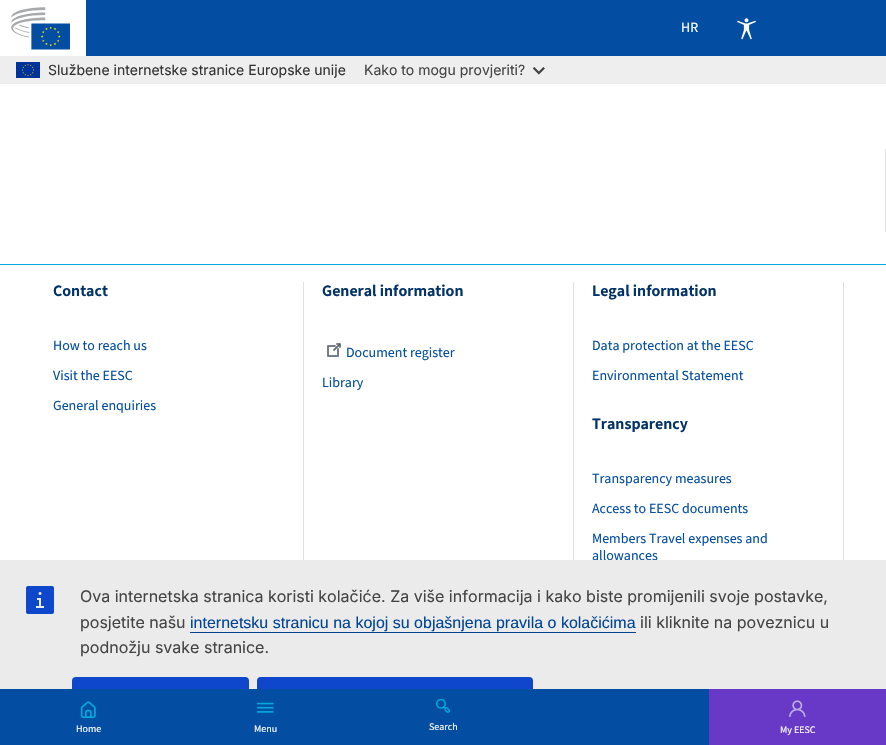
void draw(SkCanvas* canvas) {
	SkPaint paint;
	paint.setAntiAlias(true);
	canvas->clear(0xffffffff);
	canvas->drawImageRect(SkImages::DeferredFromEncodedData(SkData::MakeFromFileName("img1.png")), SkRect::MakeXYWH(11, 7, 59, 43), SkSamplingOptions());
	paint.setColor(0xff034ea2);
	canvas->drawRect(SkRect::MakeXYWH(86, 0, 800, 56), paint);
	SkFont f1(fontMgr->matchFamilyStyle("Source Sans 3", SkFontStyle::Normal()), 14);
	f1.setSubpixel(true);
	canvas->drawString("allowances", 592, 560, f1, paint);
	paint.setColor(0xffebebeb);
	canvas->drawRect(SkRect::MakeXYWH(0, 560, 886, 129), paint);
	paint.setColor(0xff0e47cb);
	canvas->drawRoundRect(SkRect::MakeXYWH(72, 677, 177, 44), 4, 4, paint);
	canvas->drawRoundRect(SkRect::MakeXYWH(257, 677, 276, 44), 4, 4, paint);
	paint.setColor(0xff034ea2);
	canvas->drawRect(SkRect::MakeXYWH(0, 689, 709, 56), paint);
	paint.setColor(0xfffefefe);
	canvas->drawString("HR", 681, 32, f1, paint);
	canvas->drawImageRect(SkImages::DeferredFromEncodedData(SkData::MakeFromFileName("img2.png")), SkRect::MakeXYWH(737, 18, 19, 22), SkSamplingOptions());
	canvas->drawImageRect(SkImages::DeferredFromEncodedData(SkData::MakeFromFileName("img3.png")), SkRect::MakeXYWH(80, 701, 16, 18), SkSamplingOptions());
	SkFont f2(fontMgr->matchFamilyStyle("Source Sans 3", SkFontStyle::Normal()), 10);
	f2.setSubpixel(true);
	canvas->drawString("Home", 76, 732, f2, paint);
	canvas->drawImageRect(SkImages::DeferredFromEncodedData(SkData::MakeFromFileName("img4.png")), SkRect::MakeXYWH(257, 702, 17, 11), SkSamplingOptions());
	canvas->drawString("Menu", 254, 732, f2, paint);
	canvas->drawImageRect(SkImages::DeferredFromEncodedData(SkData::MakeFromFileName("img5.png")), SkRect::MakeXYWH(436, 698, 14, 15), SkSamplingOptions());
	canvas->drawString("Search", 429, 730, f2, paint);
	paint.setColor(0xff6839c6);
	canvas->drawRect(SkRect::MakeXYWH(709, 689, 177, 56), paint);
	canvas->drawImageRect(SkImages::DeferredFromEncodedData(SkData::MakeFromFileName("img6.png")), SkRect::MakeXYWH(789, 700, 17, 17), SkSamplingOptions());
	paint.setColor(0xfffefefe);
	canvas->drawString("My EESC", 780, 733, f2, paint);
	paint.setColor(0xffe0e0e0);
	canvas->drawRect(SkRect::MakeXYWH(885, 149, 1, 83), paint);
	paint.setColor(0xff00aadb);
	canvas->drawRect(SkRect::MakeXYWH(0, 264, 886, 1), paint);
	paint.setColor(0xffe0e0e0);
	canvas->drawRect(SkRect::MakeXYWH(303, 282, 1, 278), paint);
	SkFont f3(fontMgr->matchFamilyStyle("Source Sans 3", SkFontStyle(600, SkFontStyle::kNormal_Width, SkFontStyle::kUpright_Slant)), 16);
	f3.setSubpixel(true);
	paint.setColor(0xff023267);
	canvas->drawString("Contact", 53, 296, f3, paint);
	paint.setColor(0xff034ea2);
	canvas->drawString("How to reach us", 53, 350, f1, paint);
	canvas->drawString("Visit the EESC", 53, 380, f1, paint);
	canvas->drawString("General enquiries", 53, 410, f1, paint);
	paint.setColor(0xffe0e0e0);
	canvas->drawRect(SkRect::MakeXYWH(573, 282, 1, 278), paint);
	paint.setColor(0xff023267);
	canvas->drawString("General information", 322, 296, f3, paint);
	canvas->drawImageRect(SkImages::DeferredFromEncodedData(SkData::MakeFromFileName("img7.png")), SkRect::MakeXYWH(327, 343, 14, 14), SkSamplingOptions());
	paint.setColor(0xff034ea2);
	canvas->drawString("Document register", 346, 357, f1, paint);
	canvas->drawString("Library", 322, 387, f1, paint);
	paint.setColor(0xffe0e0e0);
	canvas->drawRect(SkRect::MakeXYWH(843, 282, 1, 278), paint);
	paint.setColor(0xff023267);
	canvas->drawString("Legal information", 592, 296, f3, paint);
	paint.setColor(0xff034ea2);
	canvas->drawString("Data protection at the EESC", 592, 350, f1, paint);
	canvas->drawString("Environmental Statement", 592, 380, f1, paint);
	paint.setColor(0xff023267);
	canvas->drawString("Transparency", 592, 429, f3, paint);
	paint.setColor(0xff034ea2);
	canvas->drawString("Transparency measures", 592, 483, f1, paint);
	canvas->drawString("Access to EESC documents", 592, 513, f1, paint);
	canvas->drawString("Members Travel expenses and", 592, 543, f1, paint);
	paint.setColor(0xffeeeeee);
	canvas->drawRect(SkRect::MakeXYWH(0, 56, 886, 28), paint);
	canvas->drawImageRect(SkImages::DeferredFromEncodedData(SkData::MakeFromFileName("img8.png")), SkRect::MakeXYWH(16, 62, 24, 16), SkSamplingOptions());
	SkFont f4(fontMgr->matchFamilyStyle("Inter", SkFontStyle::Normal()), 14);
	f4.setSubpixel(true);
	paint.setColor(0xff333333);
	canvas->drawString("Službene internetske stranice Europske unije", 48, 75, f4, paint);
	paint.setColor(0xff444444);
	canvas->drawString("Kako to mogu provjeriti?", 364, 75, f4, paint);
	canvas->drawImageRect(SkImages::DeferredFromEncodedData(SkData::MakeFromFileName("img9.png")), SkRect::MakeXYWH(533, 67, 12, 8), SkSamplingOptions());
	canvas->drawImageRect(SkImages::DeferredFromEncodedData(SkData::MakeFromFileName("img10.png")), SkRect::MakeXYWH(26, 586, 28, 28), SkSamplingOptions());
	SkFont f5(fontMgr->matchFamilyStyle("Inter", SkFontStyle::Normal()), 16);
	f5.setSubpixel(true);
	canvas->drawString("Ova internetska stranica koristi kolačiće. Za više informacija i kako biste promijenili svoje postavke,", 80, 602, f5, paint);
	canvas->drawString("posjetite našu", 80, 628, f5, paint);
	SkFont f6(fontMgr->matchFamilyStyle("Liberation Sans", SkFontStyle::Normal()), 16);
	f6.setSubpixel(true);
	paint.setColor(0xff004494);
	canvas->drawString("internetsku stranicu na kojoj su objašnjena pravila o kolačićima", 190, 628, f6, paint);
	canvas->drawRect(SkRect::MakeXYWH(190, 632, 446, 1), paint);
	paint.setColor(0xff444444);
	canvas->drawString("ili kliknite na poveznicu u", 640, 628, f5, paint);
	canvas->drawString("podnožju svake stranice.", 80, 653, f5, paint);
}
